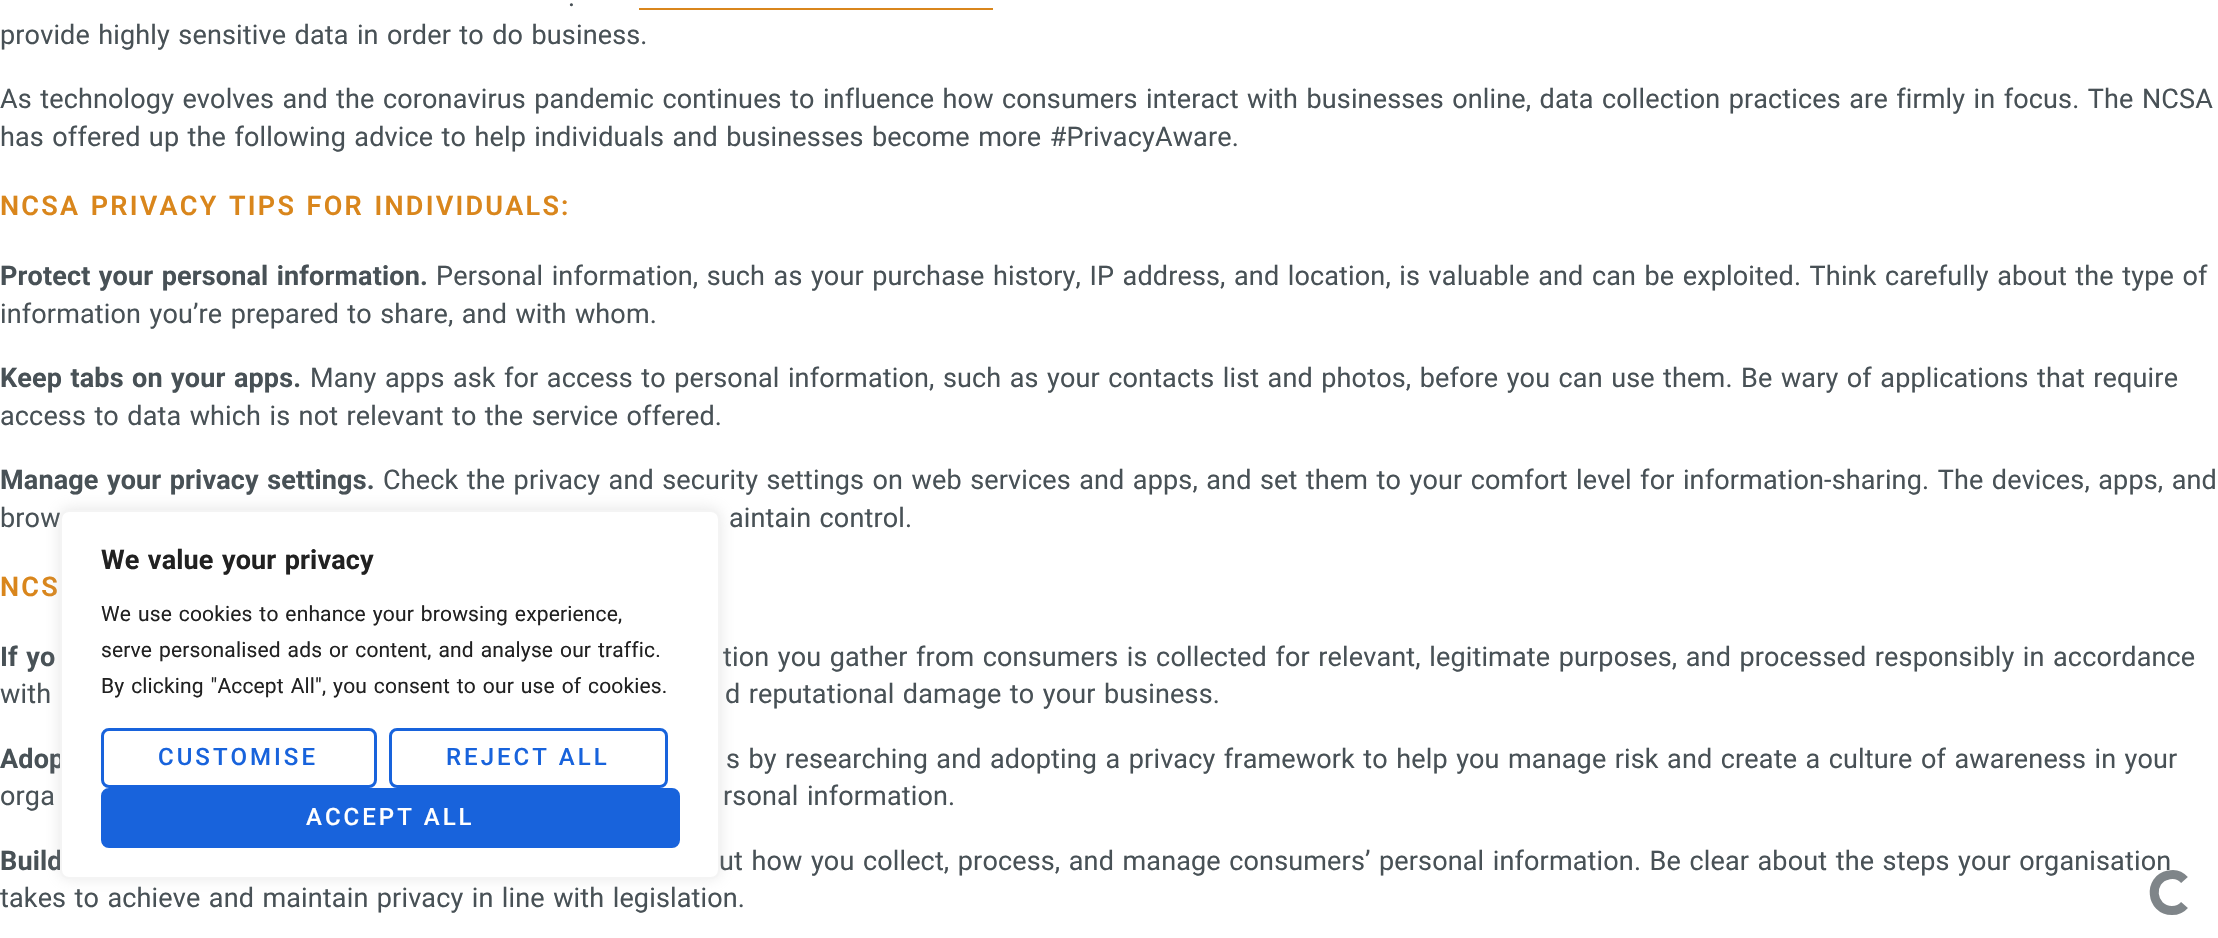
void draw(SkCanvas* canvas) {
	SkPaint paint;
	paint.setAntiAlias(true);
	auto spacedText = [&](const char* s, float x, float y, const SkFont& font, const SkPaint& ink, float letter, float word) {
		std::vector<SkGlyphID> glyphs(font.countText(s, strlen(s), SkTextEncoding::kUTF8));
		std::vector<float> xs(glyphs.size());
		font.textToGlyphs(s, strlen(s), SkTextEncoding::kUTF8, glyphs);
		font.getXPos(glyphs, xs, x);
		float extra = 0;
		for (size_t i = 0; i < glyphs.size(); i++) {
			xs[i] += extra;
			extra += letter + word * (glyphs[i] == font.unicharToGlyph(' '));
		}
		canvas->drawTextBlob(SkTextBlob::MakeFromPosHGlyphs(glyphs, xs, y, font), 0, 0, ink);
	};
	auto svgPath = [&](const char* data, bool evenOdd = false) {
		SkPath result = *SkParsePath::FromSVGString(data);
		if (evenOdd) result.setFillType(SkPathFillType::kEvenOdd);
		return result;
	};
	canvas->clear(0xffffffff);
	SkFont f1(fontMgr->matchFamilyStyle("Roboto", SkFontStyle::Normal()), 27);
	f1.setSubpixel(true);
	paint.setColor(0xff485156);
	spacedText(".", 568, 6, f1, paint, 0.15, 2);
	paint.setColor(0xffd9861c);
	canvas->drawRect(SkRect::MakeXYWH(639, 8, 354, 2), paint);
	paint.setColor(0xff485156);
	spacedText("provide highly sensitive data in order to do business.", 0, 44, f1, paint, 0.15, 1.5);
	spacedText("As technology evolves and the coronavirus pandemic continues to influence how consumers interact with businesses online, data collection practices are firmly in focus. The NCSA", 0, 108, f1, paint, 0.15, 1.5);
	spacedText("has offered up the following advice to help individuals and businesses become more #PrivacyAware.", 0, 146, f1, paint, 0.15, 1.5);
	SkFont f2(fontMgr->matchFamilyStyle("Roboto", SkFontStyle(600, SkFontStyle::kNormal_Width, SkFontStyle::kUpright_Slant)), 27);
	f2.setSubpixel(true);
	paint.setColor(0xffd9861c);
	spacedText("NCSA PRIVACY TIPS FOR INDIVIDUALS:", 0, 215, f2, paint, 2.25, 1.5);
	SkFont f3(fontMgr->matchFamilyStyle("Roboto", SkFontStyle::Bold()), 27);
	f3.setSubpixel(true);
	paint.setColor(0xff485156);
	spacedText("Protect your personal information.", 0, 285, f3, paint, 0.15, 1.5);
	spacedText("Personal information, such as your purchase history, IP address, and location, is valuable and can be exploited. Think carefully about the type of", 436, 285, f1, paint, 0.15, 1.6);
	spacedText("information you’re prepared to share, and with whom.", 0, 323, f1, paint, 0.15, 1.5);
	spacedText("Keep tabs on your apps.", 0, 387, f3, paint, 0.15, 1.5);
	spacedText("Many apps ask for access to personal information, such as your contacts list and photos, before you can use them. Be wary of applications that require", 310, 387, f1, paint, 0.15, 1.55);
	spacedText("access to data which is not relevant to the service offered.", 0, 425, f1, paint, 0.15, 1.5);
	spacedText("Manage your privacy settings.", 0, 489, f3, paint, 0.15, 1.5);
	spacedText("Check the privacy and security settings on web services and apps, and set them to your comfort level for information-sharing. The devices, apps, and", 383, 489, f1, paint, 0.15, 1.55);
	spacedText("brow", 0, 527, f1, paint, 0.15, 1.5);
	spacedText("aintain control.", 729, 527, f1, paint, 0.15, 1.5);
	paint.setColor(0xffd9861c);
	spacedText("NCS", 0, 596, f2, paint, 2.25, 1.5);
	paint.setColor(0xff485156);
	spacedText("If yo", 0, 666, f3, paint, 0.15, 1.5);
	spacedText("tion you gather from consumers is collected for relevant, legitimate purposes, and processed responsibly in accordance", 723, 666, f1, paint, 0.15, 1.6);
	spacedText("with", 0, 703, f1, paint, 0.15, 1.5);
	spacedText("d reputational damage to your business.", 725, 703, f1, paint, 0.15, 1.5);
	spacedText("Adop", 0, 768, f3, paint, 0.15, 1.5);
	spacedText("s by researching and adopting a privacy framework to help you manage risk and create a culture of awareness in your", 726, 768, f1, paint, 0.15, 1.55);
	spacedText("orga", 0, 805, f1, paint, 0.15, 1.5);
	spacedText("rsonal information.", 723, 805, f1, paint, 0.15, 1.5);
	spacedText("Build", 0, 870, f3, paint, 0.15, 1.5);
	spacedText("ut how you collect, process, and manage consumers’ personal information. Be clear about the steps your organisation", 719, 870, f1, paint, 0.15, 1.6);
	spacedText("takes to achieve and maintain privacy in line with legislation.", 0, 907, f1, paint, 0.15, 1.5);
	paint.setColor(0x4dacabab);
	paint.setMaskFilter(SkMaskFilter::MakeBlur(kNormal_SkBlurStyle, 7.5));
	canvas->drawRoundRect(SkRect::MakeXYWH(60, 509, 660, 369), 9, 9, paint);
	paint.setMaskFilter(nullptr);
	paint.setColor(0xffffffff);
	canvas->drawRoundRect(SkRect::MakeXYWH(61, 511, 658, 367), 8, 8, paint);
	paint.setStroke(true);
	paint.setStrokeWidth(2);
	paint.setColor(0xfff4f4f4);
	canvas->drawRoundRect(SkRect::MakeXYWH(61, 511, 658, 367), 8, 8, paint);
	paint.setStroke(false);
	paint.setColor(0xff212121);
	spacedText("We value your privacy", 101, 569, f3, paint, 0.15, 1.5);
	SkFont f4(fontMgr->matchFamilyStyle("Roboto", SkFontStyle::Normal()), 21);
	f4.setSubpixel(true);
	spacedText("We use cookies to enhance your browsing experience,", 101, 621, f4, paint, 0.15, 1.5);
	spacedText("serve personalised ads or content, and analyse our traffic.", 101, 657, f4, paint, 0.15, 1.5);
	spacedText("By clicking \"Accept All\", you consent to our use of cookies.", 101, 693, f4, paint, 0.15, 1.5);
	paint.setStroke(true);
	paint.setStrokeWidth(3);
	paint.setColor(0xff1863dc);
	canvas->drawRoundRect(SkRect::MakeXYWH(102.5, 729.5, 273, 57), 6.5, 6.5, paint);
	SkFont f5(fontMgr->matchFamilyStyle("Roboto", SkFontStyle(500, SkFontStyle::kNormal_Width, SkFontStyle::kUpright_Slant)), 24);
	f5.setSubpixel(true);
	paint.setStroke(false);
	spacedText("CUSTOMISE", 158, 765, f5, paint, 3, 0);
	paint.setStroke(true);
	canvas->drawRoundRect(SkRect::MakeXYWH(390.5, 729.5, 276, 57), 6.5, 6.5, paint);
	paint.setStroke(false);
	spacedText("REJECT ALL", 446, 765, f5, paint, 3, 0);
	canvas->drawRoundRect(SkRect::MakeXYWH(102.5, 789.5, 576, 57), 6.5, 6.5, paint);
	paint.setStroke(true);
	canvas->drawRoundRect(SkRect::MakeXYWH(102.5, 789.5, 576, 57), 6.5, 6.5, paint);
	paint.setStroke(false);
	paint.setColor(0xffffffff);
	spacedText("ACCEPT ALL", 306, 825, f5, paint, 3, 0);
	paint.setStroke(true);
	paint.setStrokeWidth(9);
	paint.setColor(0xff7f8589);
	canvas->drawPath(svgPath("M2184.5 905C2181.5 908.5 2176.5 910.5 2172 910.5C2150.5 910.5 2147.5 879 2168.5 875C2174.5 873.5 2180.5 875.5 2184.5 880"), paint);
}
